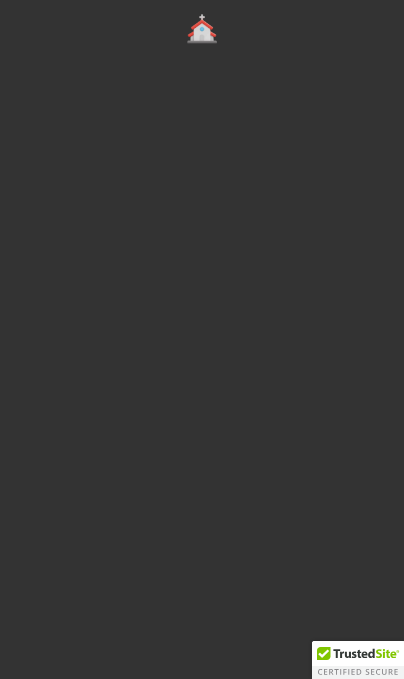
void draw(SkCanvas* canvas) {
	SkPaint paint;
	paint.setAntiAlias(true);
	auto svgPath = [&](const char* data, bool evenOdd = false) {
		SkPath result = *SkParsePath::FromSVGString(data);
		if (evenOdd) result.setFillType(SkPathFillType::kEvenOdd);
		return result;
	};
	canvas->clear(0xff333333);
	canvas->drawImageRect(SkImages::DeferredFromEncodedData(SkData::MakeFromFileName("img1.png")), SkRect::MakeXYWH(187, 14, 30, 30), SkSamplingOptions());
	paint.setColor(0x33000000);
	paint.setMaskFilter(SkMaskFilter::MakeBlur(kNormal_SkBlurStyle, 2.5));
	canvas->drawRoundRect(SkRect::MakeXYWH(312, 641, 92, 38), 2, 2, paint);
	paint.setMaskFilter(nullptr);
	paint.setColor(0xffffffff);
	canvas->drawPath(svgPath("M314 641H404V679H312V643C312 642 313 641 314 641Z"), paint);
	canvas->drawImageRect(SkImages::DeferredFromEncodedData(SkData::MakeFromFileName("img2.png")), SkRect::MakeXYWH(312, 641, 92, 38), SkSamplingOptions());
}
